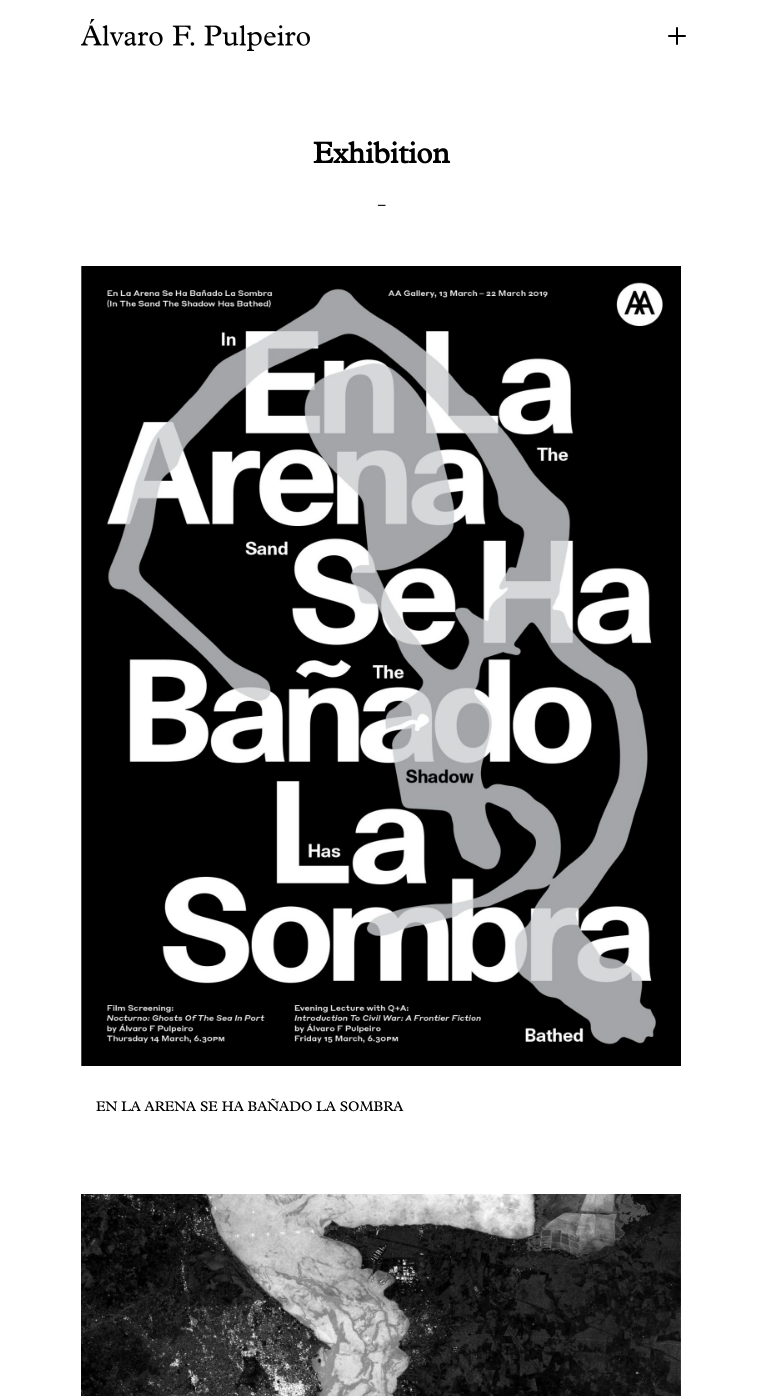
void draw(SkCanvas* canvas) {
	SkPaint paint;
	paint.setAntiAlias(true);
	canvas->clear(0xffffffff);
	canvas->drawImageRect(SkImages::DeferredFromEncodedData(SkData::MakeFromFileName("img1.png")), SkRect::MakeXYWH(81, 19, 229, 32), SkSamplingOptions());
	canvas->drawImageRect(SkImages::DeferredFromEncodedData(SkData::MakeFromFileName("img2.png")), SkRect::MakeXYWH(668, 27, 18, 18), SkSamplingOptions());
	SkFont f1(fontMgr->matchFamilyStyle("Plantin", SkFontStyle::Bold()), 30);
	f1.setSubpixel(true);
	paint.setColor(0xff000000);
	canvas->drawString("Exhibition", 313, 163, f1, paint);
	SkFont f2(fontMgr->matchFamilyStyle("Plantin", SkFontStyle::Bold()), 14);
	f2.setSubpixel(true);
	canvas->drawString("–", 378, 209, f2, paint);
	canvas->drawImageRect(SkImages::DeferredFromEncodedData(SkData::MakeFromFileName("img3.png")), SkRect::MakeXYWH(81, 266, 600, 800), SkSamplingOptions());
	SkFont f3(fontMgr->matchFamilyStyle("Plantin", SkFontStyle::Normal()), 14);
	f3.setSubpixel(true);
	canvas->drawString("EN LA ARENA SE HA BAÑADO LA SOMBRA", 96, 1111, f3, paint);
	canvas->drawImageRect(SkImages::DeferredFromEncodedData(SkData::MakeFromFileName("img4.png")), SkRect::MakeXYWH(81, 1194, 600, 202), SkSamplingOptions());
}
